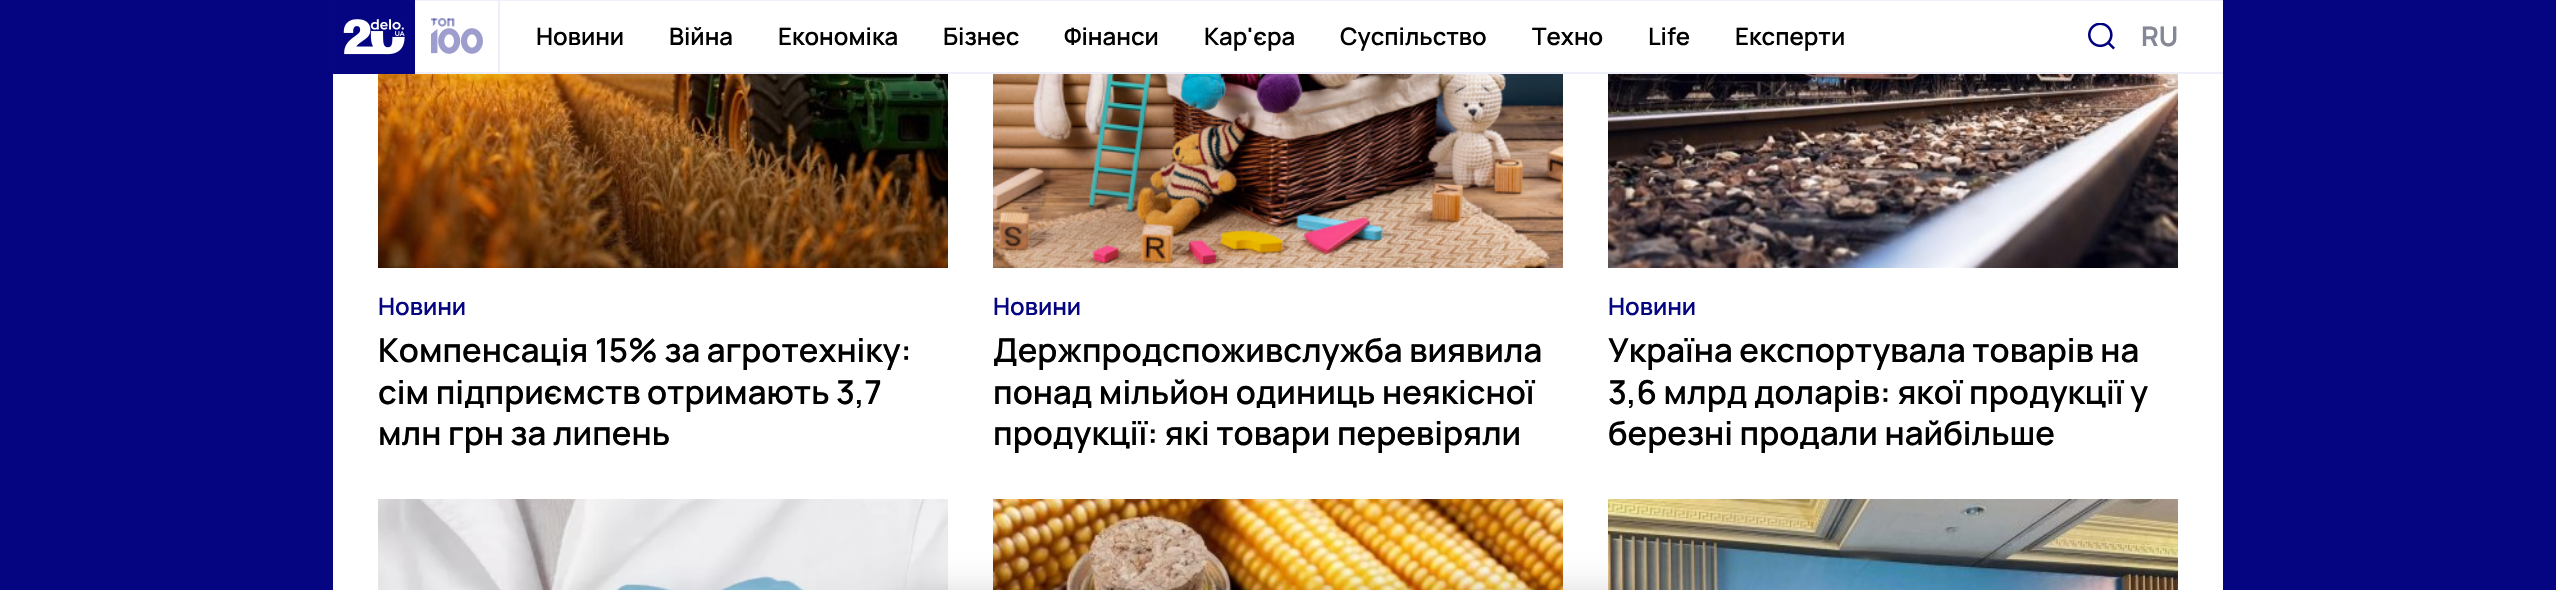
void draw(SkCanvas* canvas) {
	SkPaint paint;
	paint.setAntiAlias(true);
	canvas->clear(0xff050581);
	paint.setColor(0xffffffff);
	canvas->drawRect(SkRect::MakeXYWH(333, 74, 1890, 516), paint);
	canvas->drawRect(SkRect::MakeXYWH(333, 1, 1890, 71), paint);
	paint.setColor(0xffefeff9);
	canvas->drawRect(SkRect::MakeXYWH(333, 0, 1890, 1), paint);
	canvas->drawRect(SkRect::MakeXYWH(333, 72, 1890, 2), paint);
	canvas->drawImageRect(SkImages::DeferredFromEncodedData(SkData::MakeFromFileName("img1.png")), SkRect::MakeXYWH(333, 0, 82, 74), SkSamplingOptions());
	canvas->drawImageRect(SkImages::DeferredFromEncodedData(SkData::MakeFromFileName("img2.png")), SkRect::MakeXYWH(431, 18, 52, 36), SkSamplingOptions());
	canvas->drawRect(SkRect::MakeXYWH(498, 0, 2, 72), paint);
	SkFont f1(fontMgr->matchFamilyStyle("Manrope", SkFontStyle(600, SkFontStyle::kNormal_Width, SkFontStyle::kUpright_Slant)), 24);
	f1.setSubpixel(true);
	paint.setColor(0xff000000);
	canvas->drawString("Новини", 536, 45, f1, paint);
	canvas->drawString("Війна", 669, 45, f1, paint);
	canvas->drawString("Економіка", 778, 45, f1, paint);
	canvas->drawString("Бізнес", 943, 45, f1, paint);
	canvas->drawString("Фінанси", 1064, 45, f1, paint);
	canvas->drawString("Кар'єра", 1204, 45, f1, paint);
	canvas->drawString("Суспільство", 1340, 45, f1, paint);
	canvas->drawString("Техно", 1532, 45, f1, paint);
	canvas->drawString("Life", 1648, 45, f1, paint);
	canvas->drawString("Експерти", 1735, 45, f1, paint);
	canvas->drawImageRect(SkImages::DeferredFromEncodedData(SkData::MakeFromFileName("img3.png")), SkRect::MakeXYWH(2088, 23, 27, 27), SkSamplingOptions());
	SkFont f2(fontMgr->matchFamilyStyle("Manrope", SkFontStyle::Bold()), 27);
	f2.setSubpixel(true);
	paint.setColor(0xff848894);
	canvas->drawString("RU", 2141, 46, f2, paint);
	canvas->drawImageRect(SkImages::DeferredFromEncodedData(SkData::MakeFromFileName("img4.png")), SkRect::MakeXYWH(378, 74, 570, 194), SkSamplingOptions());
	paint.setColor(0xff050581);
	canvas->drawString("Новини", 378, 315, f1, paint);
	SkFont f3(fontMgr->matchFamilyStyle("Manrope", SkFontStyle(600, SkFontStyle::kNormal_Width, SkFontStyle::kUpright_Slant)), 33);
	f3.setSubpixel(true);
	paint.setColor(0xff000000);
	canvas->drawString("Компенсація 15% за агротехніку:", 378, 362, f3, paint);
	canvas->drawString("сім підприємств отримають 3,7", 378, 404, f3, paint);
	canvas->drawString("млн грн за липень", 378, 445, f3, paint);
	canvas->drawImageRect(SkImages::DeferredFromEncodedData(SkData::MakeFromFileName("img5.png")), SkRect::MakeXYWH(993, 74, 570, 194), SkSamplingOptions());
	paint.setColor(0xff050581);
	canvas->drawString("Новини", 993, 315, f1, paint);
	paint.setColor(0xff000000);
	canvas->drawString("Держпродспоживслужба виявила", 993, 362, f3, paint);
	canvas->drawString("понад мільйон одиниць неякісної", 993, 404, f3, paint);
	canvas->drawString("продукції: які товари перевіряли", 993, 445, f3, paint);
	canvas->drawImageRect(SkImages::DeferredFromEncodedData(SkData::MakeFromFileName("img6.png")), SkRect::MakeXYWH(1608, 74, 570, 194), SkSamplingOptions());
	paint.setColor(0xff050581);
	canvas->drawString("Новини", 1608, 315, f1, paint);
	paint.setColor(0xff000000);
	canvas->drawString("Україна експортувала товарів на", 1608, 362, f3, paint);
	canvas->drawString("3,6 млрд доларів: якої продукції у", 1608, 404, f3, paint);
	canvas->drawString("березні продали найбільше", 1608, 445, f3, paint);
	canvas->drawImageRect(SkImages::DeferredFromEncodedData(SkData::MakeFromFileName("img7.png")), SkRect::MakeXYWH(378, 499, 570, 91), SkSamplingOptions());
	canvas->drawImageRect(SkImages::DeferredFromEncodedData(SkData::MakeFromFileName("img8.png")), SkRect::MakeXYWH(993, 499, 570, 91), SkSamplingOptions());
	canvas->drawImageRect(SkImages::DeferredFromEncodedData(SkData::MakeFromFileName("img9.png")), SkRect::MakeXYWH(1608, 499, 570, 91), SkSamplingOptions());
	paint.setColor(0x26000000);
	paint.setMaskFilter(SkMaskFilter::MakeBlur(kNormal_SkBlurStyle, 17));
	canvas->drawRoundRect(SkRect::MakeXYWH(893, 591, 771, 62), 12, 12, paint);
	paint.setMaskFilter(nullptr);
}
